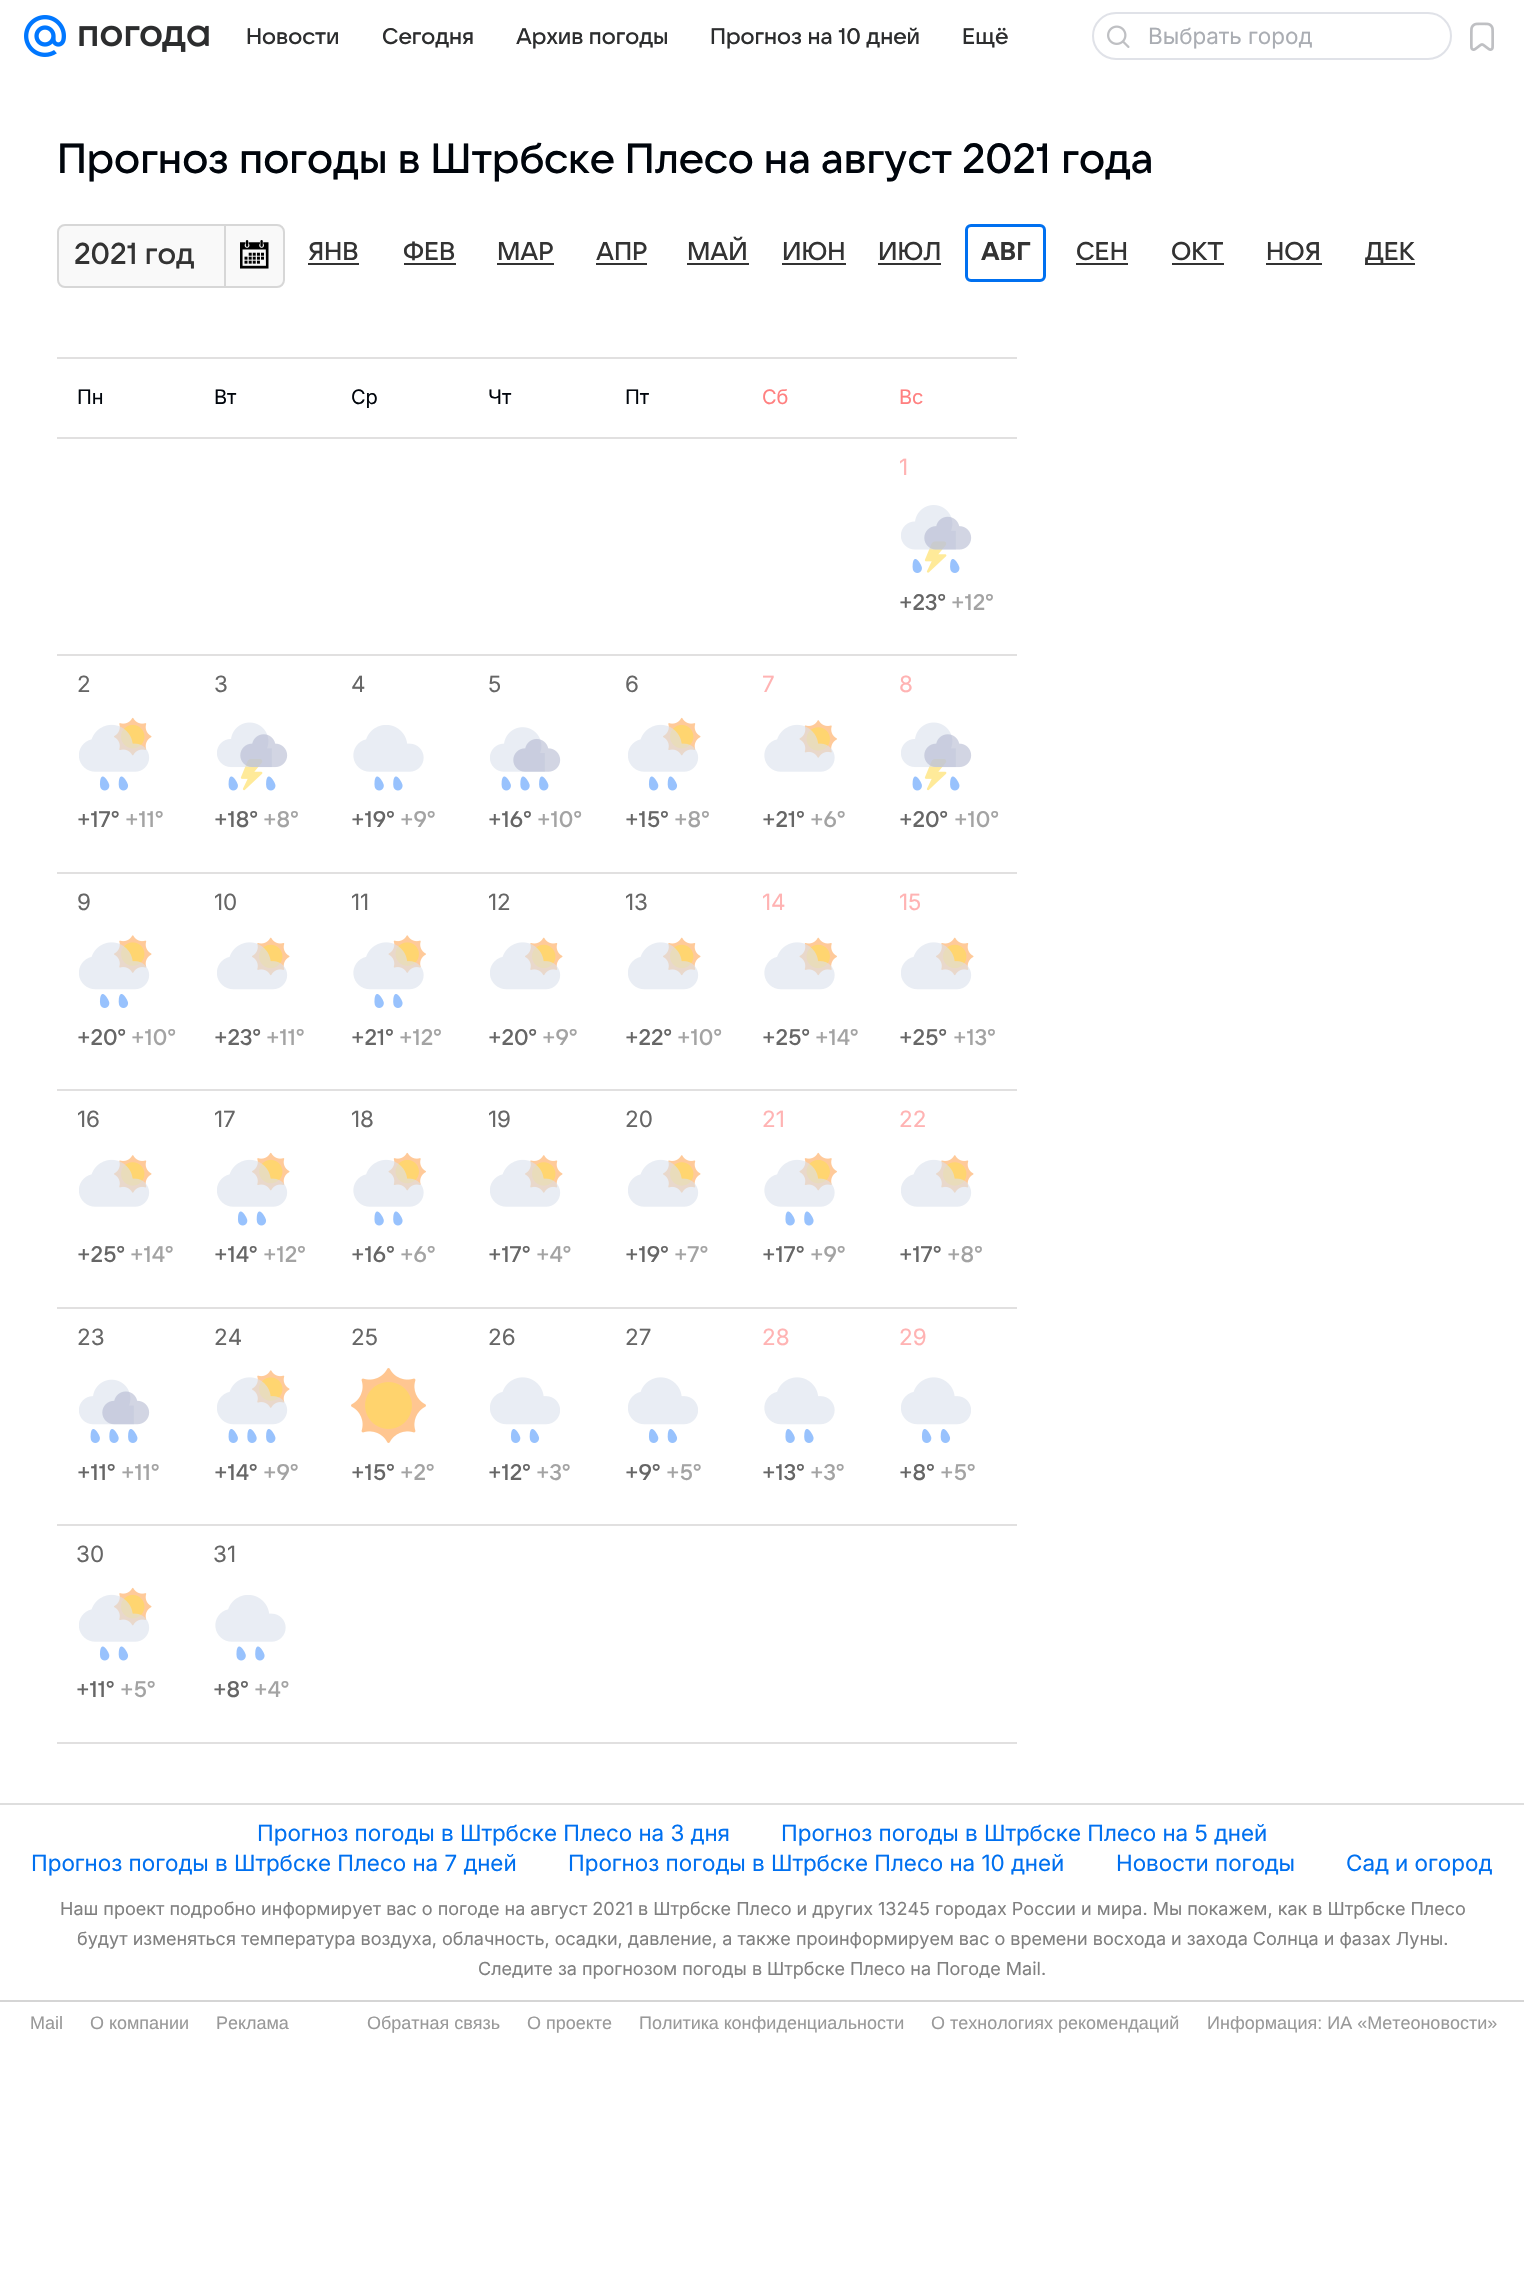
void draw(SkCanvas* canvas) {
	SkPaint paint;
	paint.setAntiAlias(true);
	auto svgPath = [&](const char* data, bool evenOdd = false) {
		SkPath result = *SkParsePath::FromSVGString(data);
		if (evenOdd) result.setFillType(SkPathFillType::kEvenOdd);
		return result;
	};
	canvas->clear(0xffffffff);
	canvas->drawImageRect(SkImages::DeferredFromEncodedData(SkData::MakeFromFileName("img1.png")), SkRect::MakeXYWH(24, 15, 42, 42), SkSamplingOptions());
	canvas->drawImageRect(SkImages::DeferredFromEncodedData(SkData::MakeFromFileName("img2.png")), SkRect::MakeXYWH(79, 25, 130, 27), SkSamplingOptions());
	SkFont f1(fontMgr->matchFamilyStyle("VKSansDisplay", SkFontStyle(500, SkFontStyle::kNormal_Width, SkFontStyle::kUpright_Slant)), 22.5);
	f1.setSubpixel(true);
	paint.setColor(0xff2c2d2e);
	canvas->drawString("Новости", 246, 44, f1, paint);
	canvas->drawString("Сегодня", 382, 44, f1, paint);
	canvas->drawString("Архив погоды", 516, 44, f1, paint);
	canvas->drawString("Прогноз на 10 дней", 710, 44, f1, paint);
	canvas->drawString("Ещё", 962, 44, f1, paint);
	paint.setStroke(true);
	paint.setStrokeWidth(2);
	paint.setColor(0xffe0e2e8);
	canvas->drawRoundRect(SkRect::MakeXYWH(1093, 13, 358, 46), 23, 23, paint);
	canvas->drawImageRect(SkImages::DeferredFromEncodedData(SkData::MakeFromFileName("img3.png")), SkRect::MakeXYWH(1107, 25, 23, 23), SkSamplingOptions());
	SkFont f2(fontMgr->matchFamilyStyle("Inter", SkFontStyle::Normal()), 22.5);
	f2.setSubpixel(true);
	paint.setStroke(false);
	paint.setColor(0xffaaadb3);
	canvas->drawString("Выбрать город", 1148, 44, f2, paint);
	canvas->drawImageRect(SkImages::DeferredFromEncodedData(SkData::MakeFromFileName("img4.png")), SkRect::MakeXYWH(1470, 22, 24, 29), SkSamplingOptions());
	SkFont f3(fontMgr->matchFamilyStyle("VKSansDisplay", SkFontStyle(500, SkFontStyle::kNormal_Width, SkFontStyle::kUpright_Slant)), 42);
	f3.setSubpixel(true);
	paint.setColor(0xff00050c);
	canvas->drawString("Прогноз погоды в Штрбске Плесо на август 2021 года", 57, 173, f3, paint);
	canvas->save();
	canvas->clipPath(svgPath("M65 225H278C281.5 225 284 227.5 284 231V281C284 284.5 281.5 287 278 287H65C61.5 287 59 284.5 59 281V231C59 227.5 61.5 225 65 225Z"), true);
	paint.setColor(0x33000000);
	paint.setMaskFilter(SkMaskFilter::MakeBlur(kNormal_SkBlurStyle, 1.5));
	canvas->drawRoundRect(SkRect::MakeXYWH(59, 228, 225, 62), 8, 8, paint);
	paint.setMaskFilter(nullptr);
	canvas->restore();
	paint.setColor(0xfff9f9f9);
	canvas->drawRoundRect(SkRect::MakeXYWH(58, 225, 226, 62), 7, 7, paint);
	paint.setStroke(true);
	paint.setColor(0xffd7d7d7);
	canvas->drawRoundRect(SkRect::MakeXYWH(58, 225, 226, 62), 7, 7, paint);
	SkFont f4(fontMgr->matchFamilyStyle("VKSansDisplay", SkFontStyle(500, SkFontStyle::kNormal_Width, SkFontStyle::kUpright_Slant)), 30);
	f4.setSubpixel(true);
	paint.setStroke(false);
	paint.setColor(0xff333333);
	canvas->drawString("2021 год", 74, 264, f4, paint);
	paint.setColor(0xffd7d7d7);
	canvas->drawRect(SkRect::MakeXYWH(224, 225, 2, 62), paint);
	canvas->drawImageRect(SkImages::DeferredFromEncodedData(SkData::MakeFromFileName("img5.png")), SkRect::MakeXYWH(240, 240, 29, 29), SkSamplingOptions());
	SkFont f5(fontMgr->matchFamilyStyle("VKSansDisplay", SkFontStyle(500, SkFontStyle::kNormal_Width, SkFontStyle::kUpright_Slant)), 25.5);
	f5.setSubpixel(true);
	paint.setColor(0xff333333);
	canvas->drawString("ЯНВ", 308, 260, f5, paint);
	canvas->drawRect(SkRect::MakeXYWH(308, 263, 51, 2), paint);
	canvas->drawString("ФЕВ", 403, 260, f5, paint);
	canvas->drawRect(SkRect::MakeXYWH(404, 263, 52, 2), paint);
	canvas->drawString("МАР", 497, 260, f5, paint);
	canvas->drawRect(SkRect::MakeXYWH(497, 263, 57, 2), paint);
	canvas->drawString("АПР", 596, 260, f5, paint);
	canvas->drawRect(SkRect::MakeXYWH(596, 263, 51, 2), paint);
	canvas->drawString("МАЙ", 687, 260, f5, paint);
	canvas->drawRect(SkRect::MakeXYWH(687, 263, 62, 2), paint);
	canvas->drawString("ИЮН", 782, 260, f5, paint);
	canvas->drawRect(SkRect::MakeXYWH(782, 263, 64, 2), paint);
	canvas->drawString("ИЮЛ", 878, 260, f5, paint);
	canvas->drawRect(SkRect::MakeXYWH(878, 263, 63, 2), paint);
	paint.setStroke(true);
	paint.setStrokeWidth(3);
	paint.setColor(0xff0070f0);
	canvas->drawRoundRect(SkRect::MakeXYWH(966.5, 225.5, 78, 55), 4.5, 4.5, paint);
	SkFont f6(fontMgr->matchFamilyStyle("VKSansDisplay", SkFontStyle::Bold()), 25.5);
	f6.setSubpixel(true);
	paint.setStroke(false);
	paint.setColor(0xff333333);
	canvas->drawString("АВГ", 981, 260, f6, paint);
	canvas->drawString("СЕН", 1076, 260, f5, paint);
	canvas->drawRect(SkRect::MakeXYWH(1076, 263, 52, 2), paint);
	canvas->drawString("ОКТ", 1171, 260, f5, paint);
	canvas->drawRect(SkRect::MakeXYWH(1172, 263, 52, 2), paint);
	canvas->drawString("НОЯ", 1266, 260, f5, paint);
	canvas->drawRect(SkRect::MakeXYWH(1266, 263, 56, 2), paint);
	canvas->drawRect(SkRect::MakeXYWH(1365, 263, 50, 2), paint);
	canvas->drawString("ДЕК", 1365, 260, f5, paint);
	paint.setColor(0xffe1e0e0);
	canvas->drawRect(SkRect::MakeXYWH(57, 357, 960, 2), paint);
	canvas->drawRect(SkRect::MakeXYWH(57, 437, 960, 2), paint);
	SkFont f7(fontMgr->matchFamilyStyle("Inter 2", SkFontStyle::Normal()), 20);
	f7.setSubpixel(true);
	paint.setColor(0xff00050c);
	canvas->drawString("Пн", 77, 404, f7, paint);
	canvas->drawString("Вт", 214, 404, f7, paint);
	canvas->drawString("Ср", 351, 404, f7, paint);
	canvas->drawString("Чт", 488, 404, f7, paint);
	canvas->drawString("Пт", 625, 404, f7, paint);
	paint.setColor(0xffff8080);
	canvas->drawString("Сб", 762, 404, f7, paint);
	canvas->drawString("Вс", 899, 404, f7, paint);
	paint.setColor(0xffe1e0e0);
	canvas->drawRect(SkRect::MakeXYWH(57, 654, 960, 2), paint);
	paint.setColor(0xffffb3b3);
	canvas->drawString("1", 899, 475, f2, paint);
	canvas->drawImageRect(SkImages::DeferredFromEncodedData(SkData::MakeFromFileName("img6.png")), SkRect::MakeXYWH(901, 505, 71, 68), SkSamplingOptions());
	paint.setColor(0xff666666);
	canvas->drawString("+23°", 899, 610, f1, paint);
	paint.setColor(0xffa3a3a3);
	canvas->drawString("+12°", 951, 610, f1, paint);
	paint.setColor(0xffe1e0e0);
	canvas->drawRect(SkRect::MakeXYWH(57, 872, 960, 2), paint);
	paint.setColor(0xff666666);
	canvas->drawString("2", 77, 692, f2, paint);
	canvas->drawImageRect(SkImages::DeferredFromEncodedData(SkData::MakeFromFileName("img7.png")), SkRect::MakeXYWH(79, 717, 73, 74), SkSamplingOptions());
	canvas->drawString("+17°", 77, 827, f1, paint);
	paint.setColor(0xffa3a3a3);
	canvas->drawString("+11°", 125, 827, f1, paint);
	paint.setColor(0xff666666);
	canvas->drawString("3", 214, 692, f2, paint);
	canvas->drawImageRect(SkImages::DeferredFromEncodedData(SkData::MakeFromFileName("img8.png")), SkRect::MakeXYWH(217, 722, 71, 69), SkSamplingOptions());
	canvas->drawString("+18°", 214, 827, f1, paint);
	paint.setColor(0xffa3a3a3);
	canvas->drawString("+8°", 263, 827, f1, paint);
	paint.setColor(0xff666666);
	canvas->drawString("4", 351, 692, f2, paint);
	canvas->drawImageRect(SkImages::DeferredFromEncodedData(SkData::MakeFromFileName("img9.png")), SkRect::MakeXYWH(353, 725, 71, 66), SkSamplingOptions());
	canvas->drawString("+19°", 351, 827, f1, paint);
	paint.setColor(0xffa3a3a3);
	canvas->drawString("+9°", 400, 827, f1, paint);
	paint.setColor(0xff666666);
	canvas->drawString("5", 488, 692, f2, paint);
	canvas->drawImageRect(SkImages::DeferredFromEncodedData(SkData::MakeFromFileName("img10.png")), SkRect::MakeXYWH(490, 727, 71, 64), SkSamplingOptions());
	canvas->drawString("+16°", 488, 827, f1, paint);
	paint.setColor(0xffa3a3a3);
	canvas->drawString("+10°", 537, 827, f1, paint);
	paint.setColor(0xff666666);
	canvas->drawString("6", 625, 692, f2, paint);
	canvas->drawImageRect(SkImages::DeferredFromEncodedData(SkData::MakeFromFileName("img7.png")), SkRect::MakeXYWH(628, 717, 73, 74), SkSamplingOptions());
	canvas->drawString("+15°", 625, 827, f1, paint);
	paint.setColor(0xffa3a3a3);
	canvas->drawString("+8°", 674, 827, f1, paint);
	paint.setColor(0xffffb3b3);
	canvas->drawString("7", 762, 692, f2, paint);
	canvas->drawImageRect(SkImages::DeferredFromEncodedData(SkData::MakeFromFileName("img11.png")), SkRect::MakeXYWH(764, 720, 73, 52), SkSamplingOptions());
	paint.setColor(0xff666666);
	canvas->drawString("+21°", 762, 827, f1, paint);
	paint.setColor(0xffa3a3a3);
	canvas->drawString("+6°", 810, 827, f1, paint);
	paint.setColor(0xffffb3b3);
	canvas->drawString("8", 899, 692, f2, paint);
	canvas->drawImageRect(SkImages::DeferredFromEncodedData(SkData::MakeFromFileName("img8.png")), SkRect::MakeXYWH(901, 722, 71, 69), SkSamplingOptions());
	paint.setColor(0xff666666);
	canvas->drawString("+20°", 899, 827, f1, paint);
	paint.setColor(0xffa3a3a3);
	canvas->drawString("+10°", 954, 827, f1, paint);
	paint.setColor(0xffe1e0e0);
	canvas->drawRect(SkRect::MakeXYWH(57, 1089, 960, 2), paint);
	paint.setColor(0xff666666);
	canvas->drawString("9", 77, 910, f2, paint);
	canvas->drawImageRect(SkImages::DeferredFromEncodedData(SkData::MakeFromFileName("img12.png")), SkRect::MakeXYWH(79, 935, 73, 73), SkSamplingOptions());
	canvas->drawString("+20°", 77, 1045, f1, paint);
	paint.setColor(0xffa3a3a3);
	canvas->drawString("+10°", 131, 1045, f1, paint);
	paint.setColor(0xff666666);
	canvas->drawString("10", 214, 910, f2, paint);
	canvas->drawImageRect(SkImages::DeferredFromEncodedData(SkData::MakeFromFileName("img13.png")), SkRect::MakeXYWH(217, 937, 73, 53), SkSamplingOptions());
	canvas->drawString("+23°", 214, 1045, f1, paint);
	paint.setColor(0xffa3a3a3);
	canvas->drawString("+11°", 266, 1045, f1, paint);
	paint.setColor(0xff666666);
	canvas->drawString("11", 351, 910, f2, paint);
	canvas->drawImageRect(SkImages::DeferredFromEncodedData(SkData::MakeFromFileName("img14.png")), SkRect::MakeXYWH(353, 935, 73, 73), SkSamplingOptions());
	canvas->drawString("+21°", 351, 1045, f1, paint);
	paint.setColor(0xffa3a3a3);
	canvas->drawString("+12°", 399, 1045, f1, paint);
	paint.setColor(0xff666666);
	canvas->drawString("12", 488, 910, f2, paint);
	canvas->drawImageRect(SkImages::DeferredFromEncodedData(SkData::MakeFromFileName("img13.png")), SkRect::MakeXYWH(490, 937, 73, 53), SkSamplingOptions());
	canvas->drawString("+20°", 488, 1045, f1, paint);
	paint.setColor(0xffa3a3a3);
	canvas->drawString("+9°", 542, 1045, f1, paint);
	paint.setColor(0xff666666);
	canvas->drawString("13", 625, 910, f2, paint);
	canvas->drawImageRect(SkImages::DeferredFromEncodedData(SkData::MakeFromFileName("img13.png")), SkRect::MakeXYWH(628, 937, 73, 53), SkSamplingOptions());
	canvas->drawString("+22°", 625, 1045, f1, paint);
	paint.setColor(0xffa3a3a3);
	canvas->drawString("+10°", 677, 1045, f1, paint);
	paint.setColor(0xffffb3b3);
	canvas->drawString("14", 762, 910, f2, paint);
	canvas->drawImageRect(SkImages::DeferredFromEncodedData(SkData::MakeFromFileName("img15.png")), SkRect::MakeXYWH(764, 937, 73, 53), SkSamplingOptions());
	paint.setColor(0xff666666);
	canvas->drawString("+25°", 762, 1045, f1, paint);
	paint.setColor(0xffa3a3a3);
	canvas->drawString("+14°", 815, 1045, f1, paint);
	paint.setColor(0xffffb3b3);
	canvas->drawString("15", 899, 910, f2, paint);
	canvas->drawImageRect(SkImages::DeferredFromEncodedData(SkData::MakeFromFileName("img13.png")), SkRect::MakeXYWH(901, 937, 73, 53), SkSamplingOptions());
	paint.setColor(0xff666666);
	canvas->drawString("+25°", 899, 1045, f1, paint);
	paint.setColor(0xffa3a3a3);
	canvas->drawString("+13°", 953, 1045, f1, paint);
	paint.setColor(0xffe1e0e0);
	canvas->drawRect(SkRect::MakeXYWH(57, 1307, 960, 2), paint);
	paint.setColor(0xff666666);
	canvas->drawString("16", 77, 1127, f2, paint);
	canvas->drawImageRect(SkImages::DeferredFromEncodedData(SkData::MakeFromFileName("img16.png")), SkRect::MakeXYWH(79, 1155, 73, 52), SkSamplingOptions());
	canvas->drawString("+25°", 77, 1262, f1, paint);
	paint.setColor(0xffa3a3a3);
	canvas->drawString("+14°", 130, 1262, f1, paint);
	paint.setColor(0xff666666);
	canvas->drawString("17", 214, 1127, f2, paint);
	canvas->drawImageRect(SkImages::DeferredFromEncodedData(SkData::MakeFromFileName("img7.png")), SkRect::MakeXYWH(217, 1152, 73, 74), SkSamplingOptions());
	canvas->drawString("+14°", 214, 1262, f1, paint);
	paint.setColor(0xffa3a3a3);
	canvas->drawString("+12°", 263, 1262, f1, paint);
	paint.setColor(0xff666666);
	canvas->drawString("18", 351, 1127, f2, paint);
	canvas->drawImageRect(SkImages::DeferredFromEncodedData(SkData::MakeFromFileName("img17.png")), SkRect::MakeXYWH(353, 1152, 73, 74), SkSamplingOptions());
	canvas->drawString("+16°", 351, 1262, f1, paint);
	paint.setColor(0xffa3a3a3);
	canvas->drawString("+6°", 400, 1262, f1, paint);
	paint.setColor(0xff666666);
	canvas->drawString("19", 488, 1127, f2, paint);
	canvas->drawImageRect(SkImages::DeferredFromEncodedData(SkData::MakeFromFileName("img16.png")), SkRect::MakeXYWH(490, 1155, 73, 52), SkSamplingOptions());
	canvas->drawString("+17°", 488, 1262, f1, paint);
	paint.setColor(0xffa3a3a3);
	canvas->drawString("+4°", 536, 1262, f1, paint);
	paint.setColor(0xff666666);
	canvas->drawString("20", 625, 1127, f2, paint);
	canvas->drawImageRect(SkImages::DeferredFromEncodedData(SkData::MakeFromFileName("img16.png")), SkRect::MakeXYWH(628, 1155, 73, 52), SkSamplingOptions());
	canvas->drawString("+19°", 625, 1262, f1, paint);
	paint.setColor(0xffa3a3a3);
	canvas->drawString("+7°", 674, 1262, f1, paint);
	paint.setColor(0xffffb3b3);
	canvas->drawString("21", 762, 1127, f2, paint);
	canvas->drawImageRect(SkImages::DeferredFromEncodedData(SkData::MakeFromFileName("img17.png")), SkRect::MakeXYWH(764, 1152, 73, 74), SkSamplingOptions());
	paint.setColor(0xff666666);
	canvas->drawString("+17°", 762, 1262, f1, paint);
	paint.setColor(0xffa3a3a3);
	canvas->drawString("+9°", 810, 1262, f1, paint);
	paint.setColor(0xffffb3b3);
	canvas->drawString("22", 899, 1127, f2, paint);
	canvas->drawImageRect(SkImages::DeferredFromEncodedData(SkData::MakeFromFileName("img16.png")), SkRect::MakeXYWH(901, 1155, 73, 52), SkSamplingOptions());
	paint.setColor(0xff666666);
	canvas->drawString("+17°", 899, 1262, f1, paint);
	paint.setColor(0xffa3a3a3);
	canvas->drawString("+8°", 947, 1262, f1, paint);
	paint.setColor(0xffe1e0e0);
	canvas->drawRect(SkRect::MakeXYWH(57, 1524, 960, 2), paint);
	paint.setColor(0xff666666);
	canvas->drawString("23", 77, 1345, f2, paint);
	canvas->drawImageRect(SkImages::DeferredFromEncodedData(SkData::MakeFromFileName("img18.png")), SkRect::MakeXYWH(79, 1379, 71, 64), SkSamplingOptions());
	canvas->drawString("+11°", 77, 1480, f1, paint);
	paint.setColor(0xffa3a3a3);
	canvas->drawString("+11°", 121, 1480, f1, paint);
	paint.setColor(0xff666666);
	canvas->drawString("24", 214, 1345, f2, paint);
	canvas->drawImageRect(SkImages::DeferredFromEncodedData(SkData::MakeFromFileName("img19.png")), SkRect::MakeXYWH(217, 1370, 73, 73), SkSamplingOptions());
	canvas->drawString("+14°", 214, 1480, f1, paint);
	paint.setColor(0xffa3a3a3);
	canvas->drawString("+9°", 263, 1480, f1, paint);
	paint.setColor(0xff666666);
	canvas->drawString("25", 351, 1345, f2, paint);
	canvas->drawImageRect(SkImages::DeferredFromEncodedData(SkData::MakeFromFileName("img20.png")), SkRect::MakeXYWH(351, 1368, 75, 75), SkSamplingOptions());
	canvas->drawString("+15°", 351, 1480, f1, paint);
	paint.setColor(0xffa3a3a3);
	canvas->drawString("+2°", 400, 1480, f1, paint);
	paint.setColor(0xff666666);
	canvas->drawString("26", 488, 1345, f2, paint);
	canvas->drawImageRect(SkImages::DeferredFromEncodedData(SkData::MakeFromFileName("img21.png")), SkRect::MakeXYWH(490, 1377, 70, 66), SkSamplingOptions());
	canvas->drawString("+12°", 488, 1480, f1, paint);
	paint.setColor(0xffa3a3a3);
	canvas->drawString("+3°", 536, 1480, f1, paint);
	paint.setColor(0xff666666);
	canvas->drawString("27", 625, 1345, f2, paint);
	canvas->drawImageRect(SkImages::DeferredFromEncodedData(SkData::MakeFromFileName("img21.png")), SkRect::MakeXYWH(628, 1377, 70, 66), SkSamplingOptions());
	canvas->drawString("+9°", 625, 1480, f1, paint);
	paint.setColor(0xffa3a3a3);
	canvas->drawString("+5°", 666, 1480, f1, paint);
	paint.setColor(0xffffb3b3);
	canvas->drawString("28", 762, 1345, f2, paint);
	canvas->drawImageRect(SkImages::DeferredFromEncodedData(SkData::MakeFromFileName("img22.png")), SkRect::MakeXYWH(764, 1377, 71, 66), SkSamplingOptions());
	paint.setColor(0xff666666);
	canvas->drawString("+13°", 762, 1480, f1, paint);
	paint.setColor(0xffa3a3a3);
	canvas->drawString("+3°", 810, 1480, f1, paint);
	paint.setColor(0xffffb3b3);
	canvas->drawString("29", 899, 1345, f2, paint);
	canvas->drawImageRect(SkImages::DeferredFromEncodedData(SkData::MakeFromFileName("img21.png")), SkRect::MakeXYWH(901, 1377, 70, 66), SkSamplingOptions());
	paint.setColor(0xff666666);
	canvas->drawString("+8°", 899, 1480, f1, paint);
	paint.setColor(0xffa3a3a3);
	canvas->drawString("+5°", 940, 1480, f1, paint);
	paint.setColor(0xffe1e0e0);
	canvas->drawRect(SkRect::MakeXYWH(57, 1742, 960, 2), paint);
	paint.setColor(0xff666666);
	canvas->drawString("30", 76, 1562, f2, paint);
	canvas->drawImageRect(SkImages::DeferredFromEncodedData(SkData::MakeFromFileName("img7.png")), SkRect::MakeXYWH(79, 1587, 73, 74), SkSamplingOptions());
	canvas->drawString("+11°", 76, 1697, f1, paint);
	paint.setColor(0xffa3a3a3);
	canvas->drawString("+5°", 120, 1697, f1, paint);
	paint.setColor(0xff666666);
	canvas->drawString("31", 213, 1562, f2, paint);
	canvas->drawImageRect(SkImages::DeferredFromEncodedData(SkData::MakeFromFileName("img9.png")), SkRect::MakeXYWH(215, 1595, 71, 66), SkSamplingOptions());
	canvas->drawString("+8°", 213, 1697, f1, paint);
	paint.setColor(0xffa3a3a3);
	canvas->drawString("+4°", 254, 1697, f1, paint);
	paint.setColor(0xffdedede);
	canvas->drawRect(SkRect::MakeXYWH(0, 1803, 1524, 2), paint);
	paint.setColor(0xff0070f0);
	canvas->drawString("Прогноз погоды в Штрбске Плесо на 3 дня", 257, 1841, f2, paint);
	canvas->drawString("Прогноз погоды в Штрбске Плесо на 5 дней", 781, 1841, f2, paint);
	canvas->drawString("Прогноз погоды в Штрбске Плесо на 7 дней", 31, 1871, f2, paint);
	canvas->drawString("Прогноз погоды в Штрбске Плесо на 10 дней", 568, 1871, f2, paint);
	canvas->drawString("Новости погоды", 1116, 1871, f2, paint);
	canvas->drawString("Сад и огород", 1346, 1871, f2, paint);
	SkFont f8(fontMgr->matchFamilyStyle("Inter 2", SkFontStyle::Normal()), 18);
	f8.setSubpixel(true);
	paint.setColor(0xff808080);
	canvas->drawString("Наш проект подробно информирует вас о погоде на август 2021 в Штрбске Плесо и других 13245 городах России и мира. Мы покажем, как в Штрбске Плесо", 60, 1915, f8, paint);
	canvas->drawString("будут изменяться температура воздуха, облачность, осадки, давление, а также проинформируем вас о времени восхода и захода Солнца и фазах Луны.", 77, 1945, f8, paint);
	canvas->drawString("Следите за прогнозом погоды в Штрбске Плесо на Погоде Mail.", 478, 1975, f8, paint);
	paint.setColor(0xffd5d5d5);
	canvas->drawRect(SkRect::MakeXYWH(0, 2000, 1524, 2), paint);
	SkFont f9(fontMgr->matchFamilyStyle("Liberation Sans", SkFontStyle::Normal()), 18);
	f9.setSubpixel(true);
	paint.setColor(0xff999999);
	canvas->drawString("Mail", 30, 2029, f9, paint);
	canvas->drawString("О компании", 90, 2029, f9, paint);
	canvas->drawString("Реклама", 216, 2029, f9, paint);
	canvas->drawString("Обратная связь", 367, 2029, f9, paint);
	canvas->drawString("О проекте", 527, 2029, f9, paint);
	canvas->drawString("Политика конфиденциальности", 639, 2029, f9, paint);
	canvas->drawString("О технологиях рекомендаций", 931, 2029, f9, paint);
	canvas->drawString("Информация: ИА «Метеоновости»", 1207, 2029, f9, paint);
}
